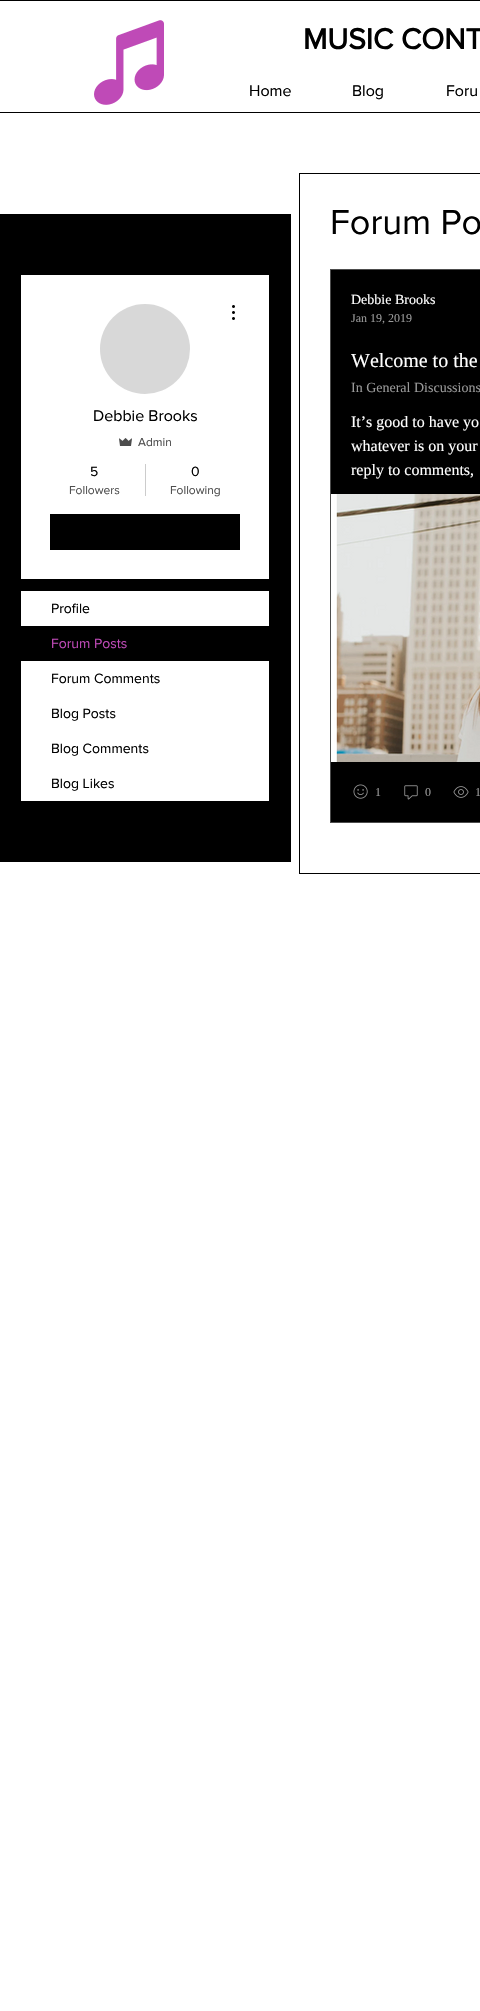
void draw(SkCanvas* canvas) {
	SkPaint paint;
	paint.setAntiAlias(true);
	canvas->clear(0xffffffff);
	paint.setColor(0xff000000);
	canvas->drawRect(SkRect::MakeXYWH(0, 0, 480, 1), paint);
	canvas->drawRect(SkRect::MakeXYWH(0, 112, 480, 1), paint);
	canvas->drawImageRect(SkImages::DeferredFromEncodedData(SkData::MakeFromFileName("img1.png")), SkRect::MakeXYWH(94, 20, 70, 85), SkSamplingOptions());
	SkFont f1(fontMgr->matchFamilyStyle("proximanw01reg", SkFontStyle::Bold()), 30);
	f1.setSubpixel(true);
	canvas->drawString("MUSIC CONT", 303, 49, f1, paint);
	SkFont f2(fontMgr->matchFamilyStyle("proximanw01reg", SkFontStyle::Normal()), 16);
	f2.setSubpixel(true);
	canvas->drawString("Home", 249, 96, f2, paint);
	canvas->drawString("Blog", 352, 96, f2, paint);
	canvas->drawString("Foru", 446, 96, f2, paint);
	canvas->drawRect(SkRect::MakeXYWH(0, 214, 291, 648), paint);
	paint.setColor(0xffffffff);
	canvas->drawRect(SkRect::MakeXYWH(21, 275, 248, 304), paint);
	paint.setColor(0xffd8d8d8);
	canvas->drawCircle(145, 349, 45, paint);
	canvas->drawImageRect(SkImages::DeferredFromEncodedData(SkData::MakeFromFileName("img2.png")), SkRect::MakeXYWH(232, 305, 3, 15), SkSamplingOptions());
	paint.setColor(0xff000000);
	canvas->drawString("Debbie Brooks", 93, 421, f2, paint);
	canvas->drawImageRect(SkImages::DeferredFromEncodedData(SkData::MakeFromFileName("img3.png")), SkRect::MakeXYWH(119, 438, 13, 8), SkSamplingOptions());
	SkFont f3(fontMgr->matchFamilyStyle("proximanw01reg", SkFontStyle::Normal()), 12);
	f3.setSubpixel(true);
	paint.setColor(0xff4d4d4d);
	canvas->drawString("Admin", 138, 446, f3, paint);
	SkFont f4(fontMgr->matchFamilyStyle("proximanw01reg", SkFontStyle::Normal()), 14);
	f4.setSubpixel(true);
	paint.setColor(0xff000000);
	canvas->drawString("5", 90, 476, f4, paint);
	paint.setColor(0xff4d4d4d);
	canvas->drawString("Followers", 69, 494, f3, paint);
	paint.setColor(0xffcccccc);
	canvas->drawRect(SkRect::MakeXYWH(145, 464, 1, 32), paint);
	paint.setColor(0xff000000);
	canvas->drawString("0", 191, 476, f4, paint);
	paint.setColor(0xff4d4d4d);
	canvas->drawString("Following", 170, 494, f3, paint);
	paint.setColor(0xff000000);
	canvas->drawRect(SkRect::MakeXYWH(50, 514, 190, 36), paint);
	paint.setColor(0xffffffff);
	canvas->drawRect(SkRect::MakeXYWH(21, 591, 248, 35), paint);
	paint.setColor(0xff000000);
	canvas->drawString("Profile", 51, 613, f4, paint);
	paint.setColor(0xffbf4ab7);
	canvas->drawString("Forum Posts", 51, 648, f4, paint);
	paint.setColor(0xffffffff);
	canvas->drawRect(SkRect::MakeXYWH(21, 661, 248, 140), paint);
	paint.setColor(0xff000000);
	canvas->drawString("Forum Comments", 51, 683, f4, paint);
	canvas->drawString("Blog Posts", 51, 718, f4, paint);
	canvas->drawString("Blog Comments", 51, 753, f4, paint);
	canvas->drawString("Blog Likes", 51, 788, f4, paint);
	paint.setStroke(true);
	paint.setStrokeWidth(1);
	canvas->drawRect(SkRect::MakeXYWH(299.5, 173.5, 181, 700), paint);
	SkFont f5(fontMgr->matchFamilyStyle("proximanw01reg", SkFontStyle::Normal()), 36);
	f5.setSubpixel(true);
	paint.setStroke(false);
	canvas->drawString("Forum Po", 330, 234, f5, paint);
	canvas->drawRect(SkRect::MakeXYWH(330.5, 269.5, 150, 553), paint);
	paint.setStroke(true);
	paint.setColor(0xff4d4d4d);
	canvas->drawRect(SkRect::MakeXYWH(330.5, 269.5, 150, 553), paint);
	SkFont f6(fontMgr->matchFamilyStyle("Liberation Serif", SkFontStyle::Normal()), 14);
	f6.setSubpixel(true);
	paint.setStroke(false);
	paint.setColor(0xffffffff);
	canvas->drawString("Debbie Brooks", 351, 304, f6, paint);
	SkFont f7(fontMgr->matchFamilyStyle("Liberation Serif", SkFontStyle::Normal()), 12);
	f7.setSubpixel(true);
	paint.setColor(0xff999999);
	canvas->drawString("Jan 19, 2019", 351, 322, f7, paint);
	SkFont f8(fontMgr->matchFamilyStyle("Liberation Serif", SkFontStyle::Normal()), 20);
	f8.setSubpixel(true);
	paint.setColor(0xffffffff);
	canvas->drawString("Welcome to the", 351, 367, f8, paint);
	paint.setColor(0xff999999);
	canvas->drawString("In General Discussions", 351, 392, f6, paint);
	SkFont f9(fontMgr->matchFamilyStyle("Liberation Serif", SkFontStyle::Normal()), 16);
	f9.setSubpixel(true);
	paint.setColor(0xffffffff);
	canvas->drawString("It’s good to have yo", 351, 427, f9, paint);
	canvas->drawString("whatever is on your", 351, 451, f9, paint);
	canvas->drawString("reply to comments,", 351, 475, f9, paint);
	canvas->drawImageRect(SkImages::DeferredFromEncodedData(SkData::MakeFromFileName("img4.png")), SkRect::MakeXYWH(331, 494, 149, 268), SkSamplingOptions());
	canvas->drawImageRect(SkImages::DeferredFromEncodedData(SkData::MakeFromFileName("img5.png")), SkRect::MakeXYWH(353, 784, 15, 15), SkSamplingOptions());
	paint.setColor(0xff999999);
	canvas->drawString("1", 375, 796, f7, paint);
	canvas->drawImageRect(SkImages::DeferredFromEncodedData(SkData::MakeFromFileName("img6.png")), SkRect::MakeXYWH(404, 785, 14, 15), SkSamplingOptions());
	canvas->drawString("0", 425, 796, f7, paint);
	canvas->drawImageRect(SkImages::DeferredFromEncodedData(SkData::MakeFromFileName("img7.png")), SkRect::MakeXYWH(453, 786, 16, 12), SkSamplingOptions());
	canvas->drawString("1", 475, 796, f7, paint);
}
